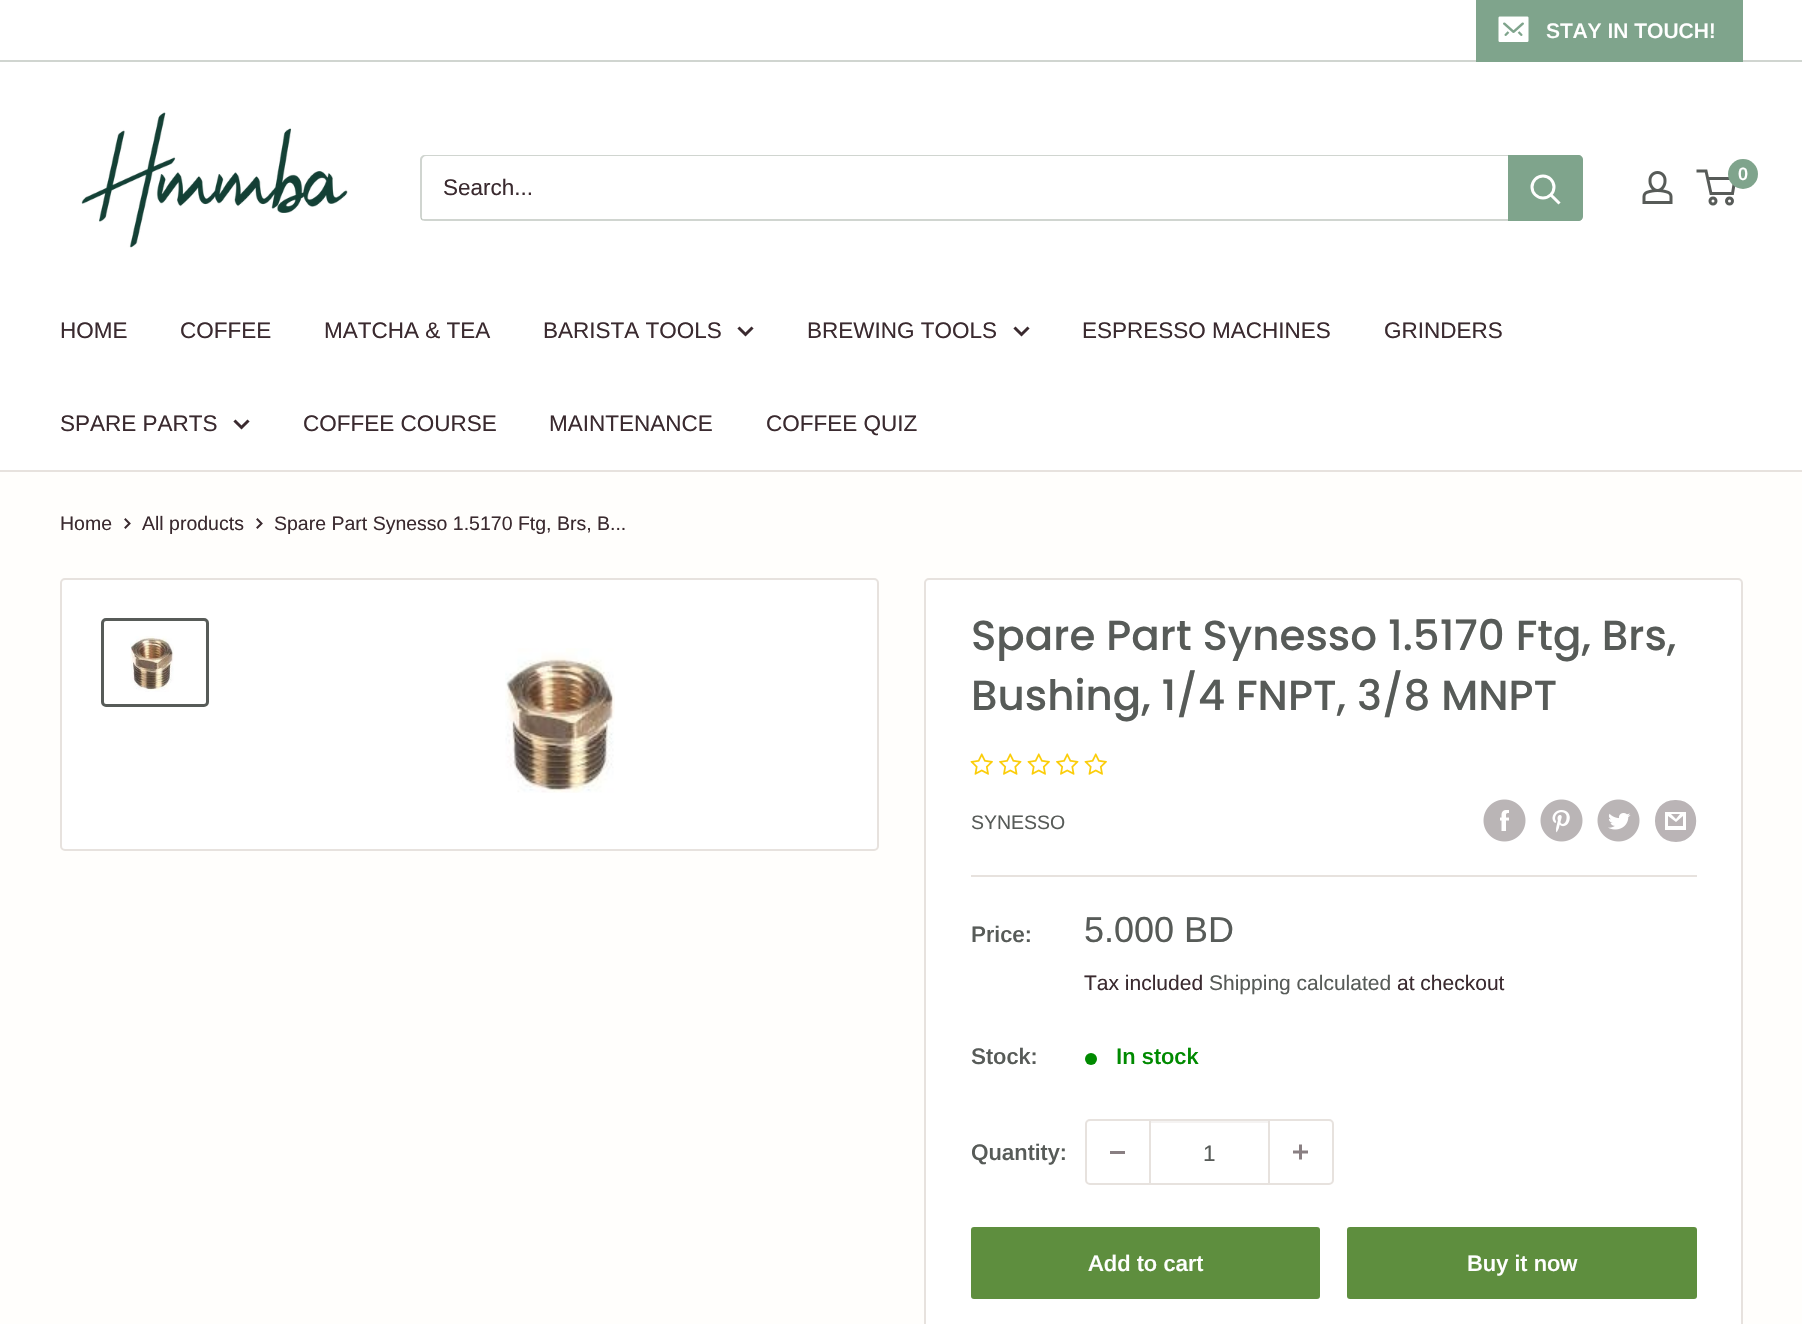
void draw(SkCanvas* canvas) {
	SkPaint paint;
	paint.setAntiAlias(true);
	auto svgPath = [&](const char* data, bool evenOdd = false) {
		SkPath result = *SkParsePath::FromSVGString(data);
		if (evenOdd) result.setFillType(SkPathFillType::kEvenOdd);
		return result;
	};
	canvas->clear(0xfffffefc);
	paint.setColor(0xffffffff);
	canvas->drawRect(SkRect::MakeXYWH(0, 0, 1802, 60), paint);
	paint.setColor(0xffd0d5d0);
	canvas->drawRect(SkRect::MakeXYWH(0, 60, 1802, 2), paint);
	paint.setColor(0xff7fa48c);
	canvas->drawRect(SkRect::MakeXYWH(1476, 0, 267, 62), paint);
	canvas->drawImageRect(SkImages::DeferredFromEncodedData(SkData::MakeFromFileName("img1.png")), SkRect::MakeXYWH(1498, 16, 31, 26), SkSamplingOptions());
	SkFont f1(fontMgr->matchFamilyStyle("Arimo", SkFontStyle(600, SkFontStyle::kNormal_Width, SkFontStyle::kUpright_Slant)), 21);
	f1.setSubpixel(true);
	paint.setColor(0xffffffff);
	canvas->drawString("STAY IN TOUCH!", 1546, 38, f1, paint);
	canvas->drawRect(SkRect::MakeXYWH(0, 62, 1802, 408), paint);
	canvas->drawImageRect(SkImages::DeferredFromEncodedData(SkData::MakeFromFileName("img2.png")), SkRect::MakeXYWH(81, 112, 267, 136), SkSamplingOptions());
	canvas->drawImageRect(SkImages::DeferredFromEncodedData(SkData::MakeFromFileName("img3.png")), SkRect::MakeXYWH(1642, 171, 31, 33), SkSamplingOptions());
	paint.setStroke(true);
	paint.setStrokeWidth(3);
	paint.setColor(0xff575b58);
	canvas->drawCircle(1713, 201, 3, paint);
	canvas->drawCircle(1729.5, 201, 3, paint);
	canvas->drawPath(svgPath("M1707.5 178.5H1735L1732.5 193.5H1711L1706 171H1696.5"), paint);
	paint.setStroke(false);
	paint.setColor(0xff7fa48c);
	canvas->drawCircle(1743, 174, 15, paint);
	SkFont f2(fontMgr->matchFamilyStyle("Arimo", SkFontStyle(600, SkFontStyle::kNormal_Width, SkFontStyle::kUpright_Slant)), 18);
	f2.setSubpixel(true);
	paint.setColor(0xffffffff);
	canvas->drawString("0", 1738, 180, f2, paint);
	paint.setColor(0xffd0d5d0);
	canvas->drawPath(svgPath("M421 218C421 220 423 221 425 221H1578C1581 221 1583 219 1583 216V160C1583 158 1582 157 1581 156V158V214C1581 217 1579 219 1576 219H423Z"), paint);
	paint.setColor(0x4d637463);
	canvas->drawPath(svgPath("M426 156H1581C1580 155 1579 155 1578 155H425C422 155 420 157 420 160V216C420 218 421 220 423 221C422 220 422 219 422 218V160C422 158 424 156 426 156Z"), paint);
	SkFont f3(fontMgr->matchFamilyStyle("Arimo", SkFontStyle::Normal()), 22.5);
	f3.setSubpixel(true);
	paint.setColor(0xff3a2a2f);
	canvas->drawString("Search...", 443, 195, f3, paint);
	paint.setColor(0xff7fa48c);
	canvas->drawPath(svgPath("M1508 155H1578C1581 155 1583 157 1583 160V216C1583 219 1581 221 1578 221H1508Z"), paint);
	paint.setStroke(true);
	paint.setStrokeCap(SkPaint::kSquare_Cap);
	paint.setColor(0xffffffff);
	canvas->drawPath(svgPath("M1558.5 202.5L1551 195"), paint);
	paint.setStrokeCap(SkPaint::kButt_Cap);
	canvas->drawCircle(1543, 187, 11, paint);
	paint.setStroke(false);
	paint.setColor(0xffe7e2de);
	canvas->drawRect(SkRect::MakeXYWH(0, 470, 1802, 2), paint);
	paint.setColor(0xff3a2a2f);
	canvas->drawString("HOME", 60, 338, f3, paint);
	canvas->drawString("COFFEE", 180, 338, f3, paint);
	canvas->drawString("MATCHA & TEA", 324, 338, f3, paint);
	canvas->drawString("BARISTA TOOLS", 543, 338, f3, paint);
	paint.setStroke(true);
	paint.setStrokeCap(SkPaint::kSquare_Cap);
	canvas->drawPath(svgPath("M751.5 328.5L745.5 334.5L739.5 328.5"), paint);
	paint.setStroke(false);
	canvas->drawString("BREWING TOOLS", 807, 338, f3, paint);
	paint.setStroke(true);
	canvas->drawPath(svgPath("M1027.5 328.5L1021.5 334.5L1015.5 328.5"), paint);
	paint.setStroke(false);
	canvas->drawString("ESPRESSO MACHINES", 1082, 338, f3, paint);
	canvas->drawString("GRINDERS", 1384, 338, f3, paint);
	canvas->drawString("SPARE PARTS", 60, 431, f3, paint);
	paint.setStroke(true);
	canvas->drawPath(svgPath("M247.5 421.5L241.5 427.5L235.5 421.5"), paint);
	paint.setStroke(false);
	canvas->drawString("COFFEE COURSE", 303, 431, f3, paint);
	canvas->drawString("MAINTENANCE", 549, 431, f3, paint);
	canvas->drawString("COFFEE QUIZ", 766, 431, f3, paint);
	SkFont f4(fontMgr->matchFamilyStyle("Arimo", SkFontStyle::Normal()), 19.5);
	f4.setSubpixel(true);
	canvas->drawString("Home", 60, 530, f4, paint);
	paint.setStroke(true);
	paint.setStrokeWidth(2);
	canvas->drawPath(svgPath("M125.5 519.5L129.5 523.5L125.5 527.5"), paint);
	paint.setStroke(false);
	canvas->drawString("All products", 142, 530, f4, paint);
	paint.setStroke(true);
	canvas->drawPath(svgPath("M257.5 519.5L261.5 523.5L257.5 527.5"), paint);
	paint.setStroke(false);
	canvas->drawString("Spare Part Synesso 1.5170 Ftg, Brs, B...", 274, 530, f4, paint);
	paint.setColor(0xffffffff);
	canvas->drawRoundRect(SkRect::MakeXYWH(61, 579, 817, 271), 4, 4, paint);
	paint.setStroke(true);
	paint.setStrokeCap(SkPaint::kButt_Cap);
	paint.setColor(0xffe7e2de);
	canvas->drawRoundRect(SkRect::MakeXYWH(61, 579, 817, 271), 4, 4, paint);
	paint.setStrokeWidth(3);
	paint.setColor(0xff575b58);
	canvas->drawRoundRect(SkRect::MakeXYWH(102.5, 619.5, 105, 86), 3.5, 3.5, paint);
	canvas->drawImageRect(SkImages::DeferredFromEncodedData(SkData::MakeFromFileName("img4.png")), SkRect::MakeXYWH(130, 636, 44, 56), SkSamplingOptions());
	canvas->drawImageRect(SkImages::DeferredFromEncodedData(SkData::MakeFromFileName("img5.png")), SkRect::MakeXYWH(505, 648, 110, 145), SkSamplingOptions());
	paint.setStroke(false);
	paint.setColor(0xffffffff);
	canvas->drawRoundRect(SkRect::MakeXYWH(925, 579, 817, 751), 4, 4, paint);
	paint.setStroke(true);
	paint.setStrokeWidth(2);
	paint.setColor(0xffe7e2de);
	canvas->drawRoundRect(SkRect::MakeXYWH(925, 579, 817, 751), 4, 4, paint);
	SkFont f5(fontMgr->matchFamilyStyle("Poppins", SkFontStyle(500, SkFontStyle::kNormal_Width, SkFontStyle::kUpright_Slant)), 42);
	f5.setSubpixel(true);
	paint.setStroke(false);
	paint.setColor(0xff575b58);
	canvas->drawString("Spare Part Synesso 1.5170 Ftg, Brs,", 971, 650, f5, paint);
	canvas->drawString("Bushing, 1/4 FNPT, 3/8 MNPT", 971, 710, f5, paint);
	canvas->drawImageRect(SkImages::DeferredFromEncodedData(SkData::MakeFromFileName("img6.png")), SkRect::MakeXYWH(970, 753, 23, 22), SkSamplingOptions());
	canvas->drawImageRect(SkImages::DeferredFromEncodedData(SkData::MakeFromFileName("img7.png")), SkRect::MakeXYWH(999, 753, 23, 22), SkSamplingOptions());
	canvas->drawImageRect(SkImages::DeferredFromEncodedData(SkData::MakeFromFileName("img6.png")), SkRect::MakeXYWH(1027, 753, 23, 22), SkSamplingOptions());
	canvas->drawImageRect(SkImages::DeferredFromEncodedData(SkData::MakeFromFileName("img7.png")), SkRect::MakeXYWH(1056, 753, 23, 22), SkSamplingOptions());
	canvas->drawImageRect(SkImages::DeferredFromEncodedData(SkData::MakeFromFileName("img6.png")), SkRect::MakeXYWH(1084, 753, 23, 22), SkSamplingOptions());
	canvas->drawString("SYNESSO", 971, 829, f4, paint);
	canvas->drawImageRect(SkImages::DeferredFromEncodedData(SkData::MakeFromFileName("img8.png")), SkRect::MakeXYWH(1483, 799, 43, 43), SkSamplingOptions());
	canvas->drawImageRect(SkImages::DeferredFromEncodedData(SkData::MakeFromFileName("img9.png")), SkRect::MakeXYWH(1540, 799, 43, 43), SkSamplingOptions());
	canvas->drawImageRect(SkImages::DeferredFromEncodedData(SkData::MakeFromFileName("img10.png")), SkRect::MakeXYWH(1597, 799, 43, 43), SkSamplingOptions());
	paint.setColor(0xffbab4b6);
	canvas->drawPath(svgPath("M1676 842C1648 842 1648 799 1676 800C1703 800 1703 842 1676 842ZM1671 814H1680L1676 819ZM1683 816V826H1668V816L1676 822ZM1686 812H1665V830H1686Z"), paint);
	paint.setColor(0xffe7e2de);
	canvas->drawRect(SkRect::MakeXYWH(971, 875, 726, 2), paint);
	SkFont f6(fontMgr->matchFamilyStyle("Arimo", SkFontStyle(600, SkFontStyle::kNormal_Width, SkFontStyle::kUpright_Slant)), 22.5);
	f6.setSubpixel(true);
	paint.setColor(0xff575b58);
	canvas->drawString("Price:", 971, 942, f6, paint);
	SkFont f7(fontMgr->matchFamilyStyle("Arimo", SkFontStyle::Normal()), 36);
	f7.setSubpixel(true);
	canvas->drawString("5.000 BD", 1084, 942, f7, paint);
	SkFont f8(fontMgr->matchFamilyStyle("Arimo", SkFontStyle::Normal()), 21);
	f8.setSubpixel(true);
	paint.setColor(0xff3a2a2f);
	canvas->drawString("Tax included", 1084, 990, f8, paint);
	paint.setColor(0xff575b58);
	canvas->drawString("Shipping calculated", 1209, 990, f8, paint);
	paint.setColor(0xff3a2a2f);
	canvas->drawString("at checkout", 1397, 990, f8, paint);
	paint.setColor(0xff575b58);
	canvas->drawString("Stock:", 971, 1064, f6, paint);
	paint.setColor(0xff008a00);
	canvas->drawCircle(1091, 1059, 6, paint);
	canvas->drawString("In stock", 1116, 1064, f6, paint);
	paint.setColor(0xff575b58);
	canvas->drawString("Quantity:", 971, 1160, f6, paint);
	paint.setStroke(true);
	paint.setColor(0xffe7e2de);
	canvas->drawRoundRect(SkRect::MakeXYWH(1086, 1120, 247, 64), 4, 4, paint);
	paint.setStroke(false);
	paint.setColor(0xff897f82);
	canvas->drawRect(SkRect::MakeXYWH(1110, 1151, 15, 3), paint);
	paint.setColor(0xfff5f3f2);
	canvas->drawRect(SkRect::MakeXYWH(1151, 1121, 117, 2), paint);
	paint.setColor(0xffe7e2de);
	canvas->drawRect(SkRect::MakeXYWH(1268, 1121, 2, 63), paint);
	canvas->drawRect(SkRect::MakeXYWH(1149, 1121, 2, 63), paint);
	paint.setColor(0xff575b58);
	canvas->drawString("1", 1203, 1161, f3, paint);
	canvas->drawImageRect(SkImages::DeferredFromEncodedData(SkData::MakeFromFileName("img11.png")), SkRect::MakeXYWH(1293, 1144, 15, 16), SkSamplingOptions());
	paint.setColor(0xff5e8e3e);
	canvas->drawRoundRect(SkRect::MakeXYWH(971, 1227, 349, 72), 3, 3, paint);
	paint.setColor(0xffffffff);
	canvas->drawString("Add to cart", 1088, 1271, f6, paint);
	paint.setColor(0xff5e8e3e);
	canvas->drawRoundRect(SkRect::MakeXYWH(1347, 1227, 350, 72), 3, 3, paint);
	paint.setColor(0xffffffff);
	canvas->drawString("Buy it now", 1467, 1271, f6, paint);
}
